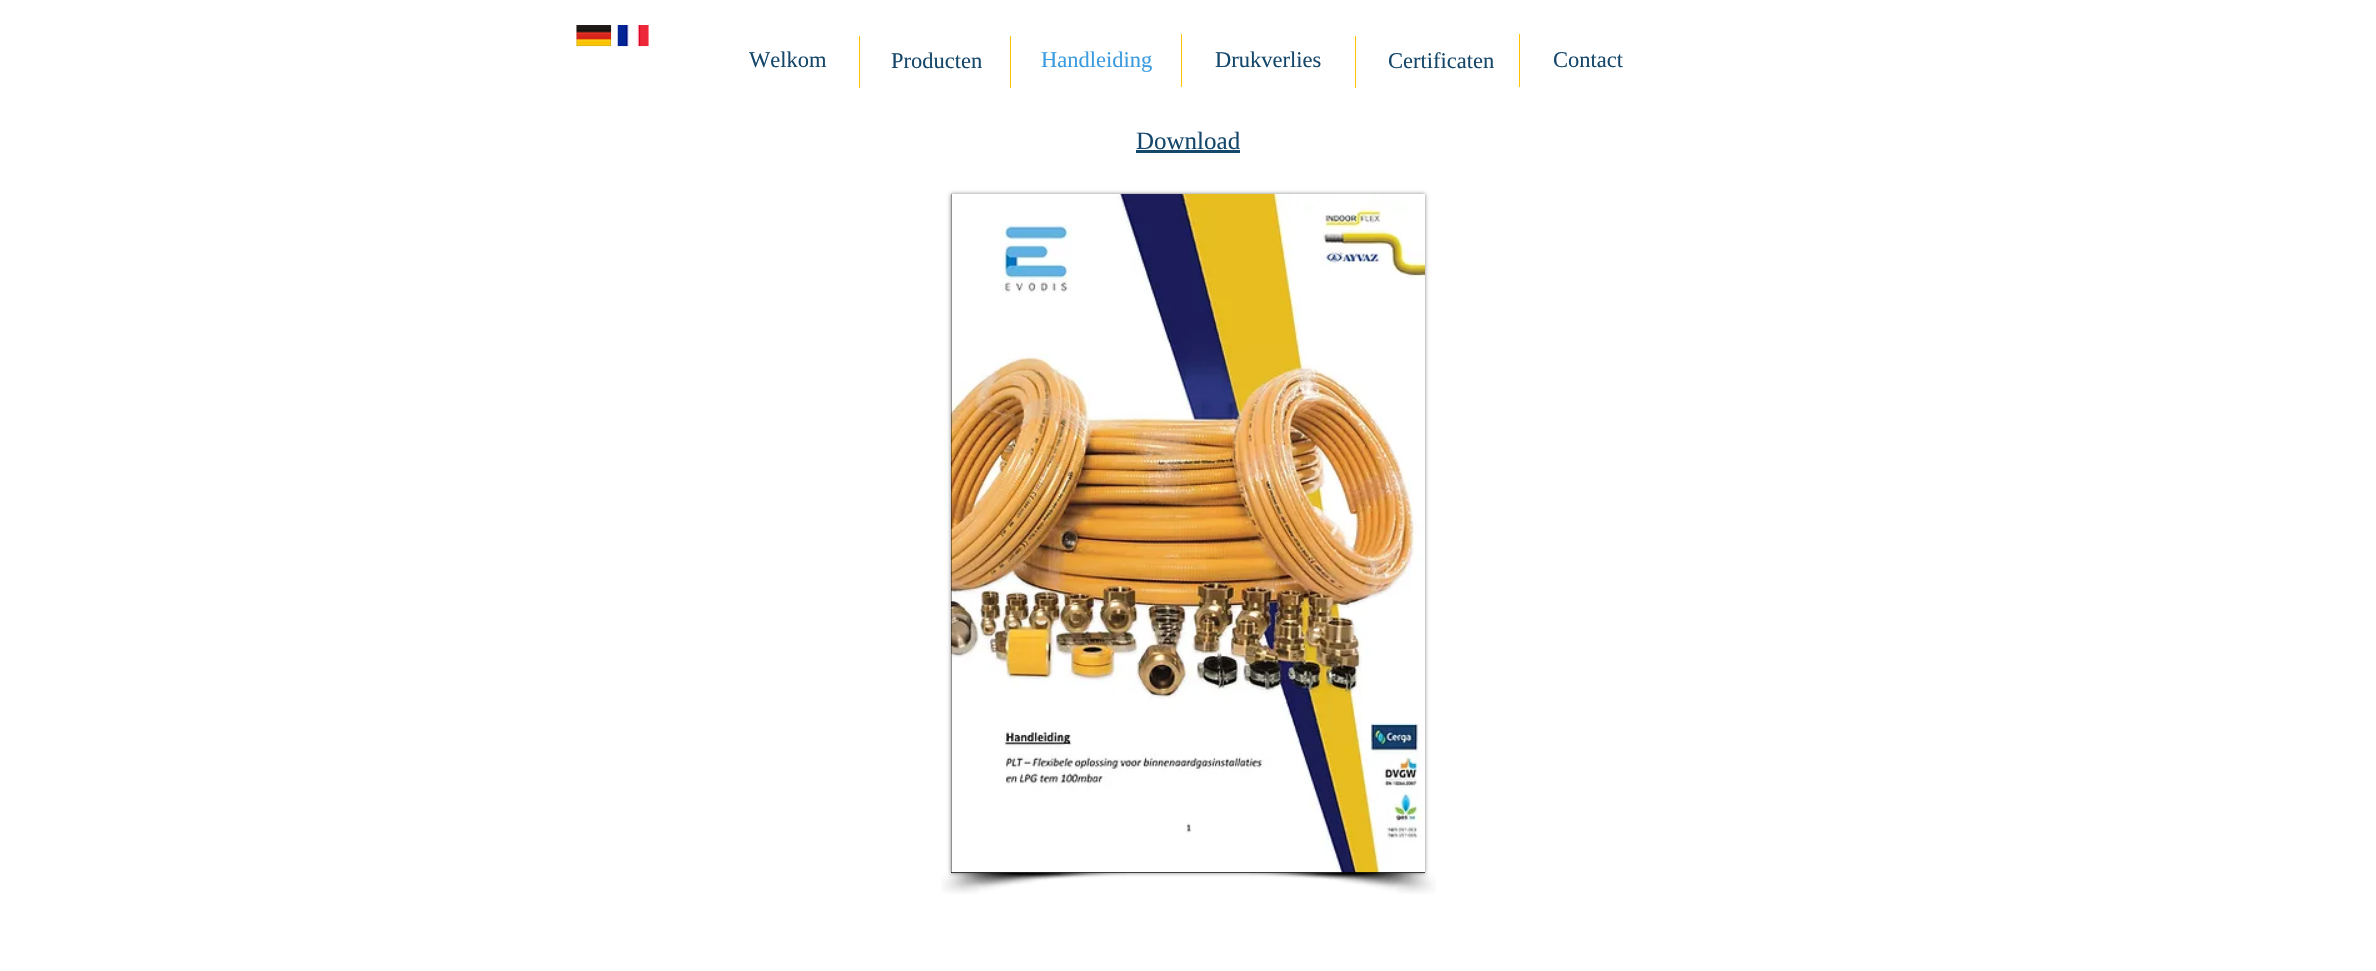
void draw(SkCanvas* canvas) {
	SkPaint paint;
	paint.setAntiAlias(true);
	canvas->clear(0xffffffff);
	canvas->drawImageRect(SkImages::DeferredFromEncodedData(SkData::MakeFromFileName("img1.png")), SkRect::MakeXYWH(576, 25, 36, 22), SkSamplingOptions());
	canvas->drawImageRect(SkImages::DeferredFromEncodedData(SkData::MakeFromFileName("img2.png")), SkRect::MakeXYWH(617, 25, 32, 22), SkSamplingOptions());
	SkFont f1(fontMgr->matchFamilyStyle("Liberation Serif", SkFontStyle::Normal()), 22.5);
	f1.setSubpixel(true);
	paint.setColor(0xff15476b);
	canvas->drawString("Welkom", 749, 67, f1, paint);
	paint.setColor(0xffffc300);
	canvas->drawRect(SkRect::MakeXYWH(859, 36, 1, 52), paint);
	paint.setColor(0xff15476b);
	canvas->drawString("Producten", 891, 68, f1, paint);
	paint.setColor(0xffffc300);
	canvas->drawRect(SkRect::MakeXYWH(1010, 36, 1, 52), paint);
	paint.setColor(0xff3a9be0);
	canvas->drawString("Handleiding", 1041, 67, f1, paint);
	paint.setColor(0xffffc300);
	canvas->drawRect(SkRect::MakeXYWH(1181, 34, 1, 53), paint);
	paint.setColor(0xff15476b);
	canvas->drawString("Drukverlies", 1215, 67, f1, paint);
	paint.setColor(0xffffc300);
	canvas->drawRect(SkRect::MakeXYWH(1355, 36, 1, 52), paint);
	paint.setColor(0xff15476b);
	canvas->drawString("Certificaten", 1388, 68, f1, paint);
	paint.setColor(0xffffc300);
	canvas->drawRect(SkRect::MakeXYWH(1519, 34, 1, 53), paint);
	paint.setColor(0xff15476b);
	canvas->drawString("Contact", 1553, 67, f1, paint);
	SkFont f2(fontMgr->matchFamilyStyle("Liberation Serif", SkFontStyle::Normal()), 25);
	f2.setSubpixel(true);
	canvas->drawString("Download", 1136, 149, f2, paint);
	canvas->drawRect(SkRect::MakeXYWH(1136, 150, 104, 3), paint);
	paint.setColor(0x80000000);
	paint.setMaskFilter(SkMaskFilter::MakeBlur(kNormal_SkBlurStyle, 2));
	canvas->drawRect(SkRect::MakeXYWH(951, 194, 474, 679), paint);
	paint.setMaskFilter(nullptr);
	paint.setColor(0xff000000);
	canvas->drawRect(SkRect::MakeXYWH(951, 194, 474, 679), paint);
	canvas->drawImageRect(SkImages::DeferredFromEncodedData(SkData::MakeFromFileName("img3.png")), SkRect::MakeXYWH(951, 193, 474, 680), SkSamplingOptions());
	canvas->drawImageRect(SkImages::DeferredFromEncodedData(SkData::MakeFromFileName("img4.png")), SkRect::MakeXYWH(941, 872, 185, 22), SkSamplingOptions());
	canvas->drawImageRect(SkImages::DeferredFromEncodedData(SkData::MakeFromFileName("img5.png")), SkRect::MakeXYWH(1250, 872, 186, 22), SkSamplingOptions());
}
